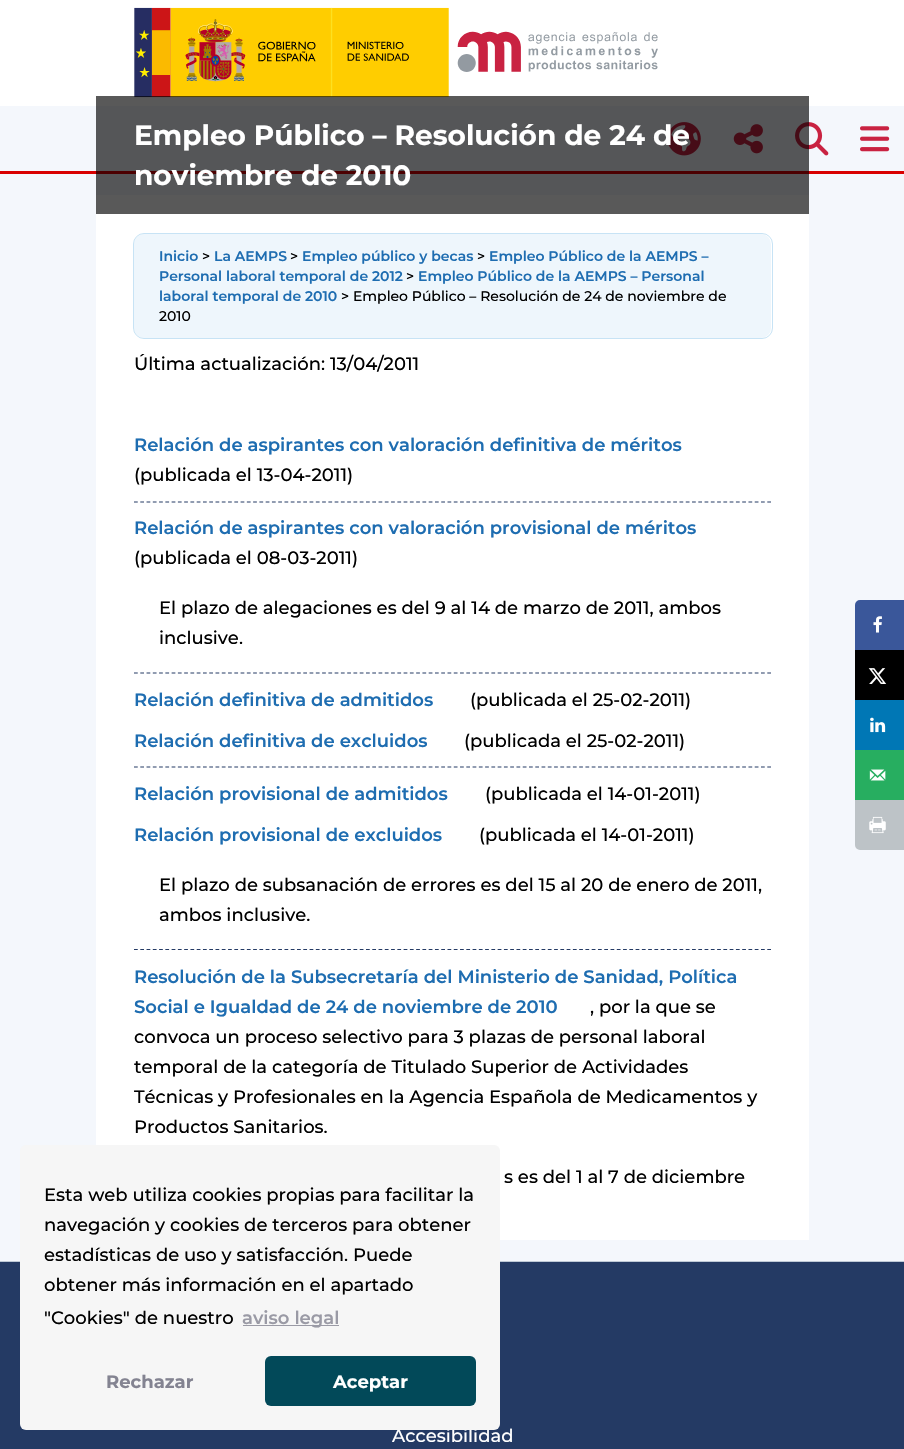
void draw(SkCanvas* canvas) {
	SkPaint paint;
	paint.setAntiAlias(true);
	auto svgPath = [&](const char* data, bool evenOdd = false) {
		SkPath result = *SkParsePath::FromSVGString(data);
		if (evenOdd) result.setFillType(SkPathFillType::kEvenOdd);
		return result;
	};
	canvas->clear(0xfff4f7fc);
	paint.setColor(0xffffffff);
	canvas->drawRect(SkRect::MakeXYWH(0, 0, 904, 106), paint);
	canvas->drawImageRect(SkImages::DeferredFromEncodedData(SkData::MakeFromFileName("img1.png")), SkRect::MakeXYWH(134, 7, 524, 91), SkSamplingOptions());
	paint.setColor(0xffd90001);
	canvas->drawRect(SkRect::MakeXYWH(0, 171, 904, 3), paint);
	canvas->drawImageRect(SkImages::DeferredFromEncodedData(SkData::MakeFromFileName("img2.png")), SkRect::MakeXYWH(667, 122, 34, 34), SkSamplingOptions());
	canvas->drawImageRect(SkImages::DeferredFromEncodedData(SkData::MakeFromFileName("img3.png")), SkRect::MakeXYWH(733, 124, 30, 30), SkSamplingOptions());
	canvas->drawImageRect(SkImages::DeferredFromEncodedData(SkData::MakeFromFileName("img4.png")), SkRect::MakeXYWH(795, 122, 34, 34), SkSamplingOptions());
	canvas->drawImageRect(SkImages::DeferredFromEncodedData(SkData::MakeFromFileName("img5.png")), SkRect::MakeXYWH(860, 126, 30, 26), SkSamplingOptions());
	paint.setStroke(true);
	paint.setStrokeWidth(19);
	paint.setColor(0xffffffff);
	canvas->drawRect(SkRect::MakeXYWH(105.5, 204.5, 694, 1026), paint);
	paint.setStroke(false);
	canvas->drawRect(SkRect::MakeXYWH(115, 214, 675, 1007), paint);
	paint.setColor(0xa6000000);
	canvas->drawRect(SkRect::MakeXYWH(96, 96, 713, 118), paint);
	SkFont f1(fontMgr->matchFamilyStyle("Montserrat", SkFontStyle::Bold()), 28);
	f1.setSubpixel(true);
	paint.setColor(0xffffffff);
	canvas->drawString("Empleo Público – Resolución de 24 de", 134, 145, f1, paint);
	canvas->drawString("noviembre de 2010", 134, 185, f1, paint);
	paint.setColor(0xffeef6fc);
	canvas->drawRoundRect(SkRect::MakeXYWH(134, 234, 637, 104), 10, 10, paint);
	paint.setStroke(true);
	paint.setStrokeWidth(1);
	paint.setColor(0xffc7e3f5);
	canvas->drawRoundRect(SkRect::MakeXYWH(133.5, 233.5, 639, 105), 10.5, 10.5, paint);
	SkFont f2(fontMgr->matchFamilyStyle("Montserrat", SkFontStyle(600, SkFontStyle::kNormal_Width, SkFontStyle::kUpright_Slant)), 14);
	f2.setSubpixel(true);
	paint.setStroke(false);
	paint.setColor(0xff1e6db1);
	canvas->drawString("Inicio", 159, 261, f2, paint);
	SkFont f3(fontMgr->matchFamilyStyle("Montserrat", SkFontStyle(500, SkFontStyle::kNormal_Width, SkFontStyle::kUpright_Slant)), 14);
	f3.setSubpixel(true);
	paint.setColor(0xff000000);
	canvas->drawString(">", 202, 261, f3, paint);
	paint.setColor(0xff1e6db1);
	canvas->drawString("La AEMPS", 214, 261, f2, paint);
	paint.setColor(0xff000000);
	canvas->drawString(">", 290, 261, f3, paint);
	paint.setColor(0xff1e6db1);
	canvas->drawString("Empleo público y becas", 302, 261, f2, paint);
	paint.setColor(0xff000000);
	canvas->drawString(">", 477, 261, f3, paint);
	paint.setColor(0xff1e6db1);
	canvas->drawString("Empleo Público de la AEMPS –", 489, 261, f2, paint);
	canvas->drawString("Personal laboral temporal de 2012", 159, 281, f2, paint);
	paint.setColor(0xff000000);
	canvas->drawString(">", 406, 281, f3, paint);
	paint.setColor(0xff1e6db1);
	canvas->drawString("Empleo Público de la AEMPS – Personal", 418, 281, f2, paint);
	canvas->drawString("laboral temporal de 2010", 159, 301, f2, paint);
	paint.setColor(0xff000000);
	canvas->drawString("> Empleo Público – Resolución de 24 de noviembre de", 341, 301, f3, paint);
	canvas->drawString("2010", 159, 321, f3, paint);
	SkFont f4(fontMgr->matchFamilyStyle("Montserrat", SkFontStyle(500, SkFontStyle::kNormal_Width, SkFontStyle::kUpright_Slant)), 18);
	f4.setSubpixel(true);
	canvas->drawString("Última actualización: 13/04/2011", 134, 370, f4, paint);
	SkFont f5(fontMgr->matchFamilyStyle("Montserrat", SkFontStyle(600, SkFontStyle::kNormal_Width, SkFontStyle::kUpright_Slant)), 18);
	f5.setSubpixel(true);
	paint.setColor(0xff1e6db1);
	canvas->drawString("Relación de aspirantes con valoración definitiva de méritos", 134, 451, f5, paint);
	paint.setColor(0xff000000);
	canvas->drawString("(publicada el 13-04-2011)", 134, 481, f4, paint);
	paint.setStroke(true);
	paint.setStrokeWidth(1.2);
	paint.setColor(0xff243a64);
	paint.setPathEffect(SkDashPathEffect::Make({{3.75f, 2.52f}}, 0));
	canvas->drawPath(svgPath("M134 502H771"), paint);
	paint.setPathEffect(nullptr);
	paint.setStroke(false);
	paint.setColor(0xff1e6db1);
	canvas->drawString("Relación de aspirantes con valoración provisional de méritos", 134, 534, f5, paint);
	paint.setColor(0xff000000);
	canvas->drawString("(publicada el 08-03-2011)", 134, 564, f4, paint);
	canvas->drawString("El plazo de alegaciones es del 9 al 14 de marzo de 2011, ambos", 159, 614, f4, paint);
	canvas->drawString("inclusive.", 159, 644, f4, paint);
	paint.setStroke(true);
	paint.setColor(0xff243a64);
	paint.setPathEffect(SkDashPathEffect::Make({{3.75f, 2.52f}}, 0));
	canvas->drawPath(svgPath("M134 673H771"), paint);
	paint.setPathEffect(nullptr);
	paint.setStroke(false);
	paint.setColor(0xff1e6db1);
	canvas->drawString("Relación definitiva de admitidos", 134, 706, f5, paint);
	paint.setColor(0xff000000);
	canvas->drawString("(publicada el 25-02-2011)", 470, 706, f4, paint);
	paint.setColor(0xff1e6db1);
	canvas->drawString("Relación definitiva de excluidos", 134, 747, f5, paint);
	paint.setColor(0xff000000);
	canvas->drawString("(publicada el 25-02-2011)", 464, 747, f4, paint);
	paint.setStroke(true);
	paint.setColor(0xff243a64);
	paint.setPathEffect(SkDashPathEffect::Make({{3.75f, 2.52f}}, 0));
	canvas->drawPath(svgPath("M134 767H771"), paint);
	paint.setPathEffect(nullptr);
	paint.setStroke(false);
	paint.setColor(0xff1e6db1);
	canvas->drawString("Relación provisional de admitidos", 134, 800, f5, paint);
	paint.setColor(0xff000000);
	canvas->drawString("(publicada el 14-01-2011)", 485, 800, f4, paint);
	paint.setColor(0xff1e6db1);
	canvas->drawString("Relación provisional de excluidos", 134, 841, f5, paint);
	paint.setColor(0xff000000);
	canvas->drawString("(publicada el 14-01-2011)", 479, 841, f4, paint);
	canvas->drawString("El plazo de subsanación de errores es del 15 al 20 de enero de 2011,", 159, 891, f4, paint);
	canvas->drawString("ambos inclusive.", 159, 921, f4, paint);
	paint.setStroke(true);
	paint.setColor(0xff243a64);
	paint.setPathEffect(SkDashPathEffect::Make({{3.75f, 2.52f}}, 0));
	canvas->drawPath(svgPath("M134 949.5H771"), paint);
	paint.setPathEffect(nullptr);
	paint.setStroke(false);
	paint.setColor(0xff1e6db1);
	canvas->drawString("Resolución de la Subsecretaría del Ministerio de Sanidad, Política", 134, 983, f5, paint);
	canvas->drawString("Social e Igualdad de 24 de noviembre de 2010", 134, 1013, f5, paint);
	paint.setColor(0xff000000);
	canvas->drawString(", por la que se", 590, 1013, f4, paint);
	canvas->drawString("convoca un proceso selectivo para 3 plazas de personal laboral", 134, 1043, f4, paint);
	canvas->drawString("temporal de la categoría de Titulado Superior de Actividades", 134, 1073, f4, paint);
	canvas->drawString("Técnicas y Profesionales en la Agencia Española de Medicamentos y", 134, 1103, f4, paint);
	canvas->drawString("Productos Sanitarios.", 134, 1133, f4, paint);
	canvas->drawString("s es del 1 al 7 de diciembre", 504, 1183, f4, paint);
	paint.setColor(0xff3a579a);
	canvas->drawPath(svgPath("M860 601.5H903.5V648.5H856.5V605C856.5 603 858 601.5 860 601.5Z"), paint);
	paint.setStroke(true);
	paint.setStrokeWidth(3);
	canvas->drawPath(svgPath("M860 601.5H903.5V648.5H856.5V605C856.5 603 858 601.5 860 601.5Z"), paint);
	canvas->drawImageRect(SkImages::DeferredFromEncodedData(SkData::MakeFromFileName("img6.png")), SkRect::MakeXYWH(873, 616, 9, 17), SkSamplingOptions());
	paint.setStroke(false);
	paint.setColor(0xff000000);
	canvas->drawRect(SkRect::MakeXYWH(855, 650, 49, 50), paint);
	canvas->drawImageRect(SkImages::DeferredFromEncodedData(SkData::MakeFromFileName("img7.png")), SkRect::MakeXYWH(868, 668, 19, 16), SkSamplingOptions());
	paint.setColor(0xff0077b5);
	canvas->drawRect(SkRect::MakeXYWH(855, 700, 49, 50), paint);
	canvas->drawImageRect(SkImages::DeferredFromEncodedData(SkData::MakeFromFileName("img8.png")), SkRect::MakeXYWH(870, 717, 16, 16), SkSamplingOptions());
	paint.setColor(0xff27ae60);
	canvas->drawRect(SkRect::MakeXYWH(855, 750, 49, 50), paint);
	canvas->drawImageRect(SkImages::DeferredFromEncodedData(SkData::MakeFromFileName("img9.png")), SkRect::MakeXYWH(869, 769, 17, 12), SkSamplingOptions());
	paint.setColor(0xffbdc3c7);
	canvas->drawPath(svgPath("M856.5 801.5H903.5V848.5H860C858 848.5 856.5 847 856.5 845Z"), paint);
	paint.setStroke(true);
	canvas->drawPath(svgPath("M856.5 801.5H903.5V848.5H860C858 848.5 856.5 847 856.5 845Z"), paint);
	canvas->drawImageRect(SkImages::DeferredFromEncodedData(SkData::MakeFromFileName("img10.png")), SkRect::MakeXYWH(869, 816, 17, 18), SkSamplingOptions());
	paint.setStroke(false);
	paint.setColor(0xff243a64);
	canvas->drawRect(SkRect::MakeXYWH(0, 1262, 904, 187), paint);
	paint.setColor(0xffbec9d6);
	canvas->drawRect(SkRect::MakeXYWH(0, 1261, 904, 1), paint);
	paint.setColor(0xffffffff);
	canvas->drawString("Accesibilidad", 392, 1442, f4, paint);
	paint.setColor(0xfff6f6f6);
	canvas->drawRoundRect(SkRect::MakeXYWH(20, 1145, 480, 285), 6, 6, paint);
	paint.setColor(0xff000000);
	canvas->drawString("Esta web utiliza cookies propias para facilitar la", 44, 1201, f4, paint);
	canvas->drawString("navegación y cookies de terceros para obtener", 44, 1231, f4, paint);
	canvas->drawString("estadísticas de uso y satisfacción. Puede", 44, 1261, f4, paint);
	canvas->drawString("obtener más información en el apartado", 44, 1291, f4, paint);
	canvas->drawString("\"Cookies\" de nuestro", 44, 1324, f4, paint);
	paint.setColor(0xff9a9aa5);
	canvas->drawRect(SkRect::MakeXYWH(243, 1325, 96, 1), paint);
	canvas->drawString("aviso legal", 242, 1324, f5, paint);
	SkFont f6(fontMgr->matchFamilyStyle("Montserrat", SkFontStyle::Bold()), 18);
	f6.setSubpixel(true);
	paint.setColor(0xff838391);
	canvas->drawString("Rechazar", 106, 1388, f6, paint);
	paint.setColor(0xff024959);
	canvas->drawRoundRect(SkRect::MakeXYWH(265, 1356, 211, 50), 6, 6, paint);
	paint.setColor(0xffffffff);
	canvas->drawString("Aceptar", 333, 1388, f6, paint);
}
